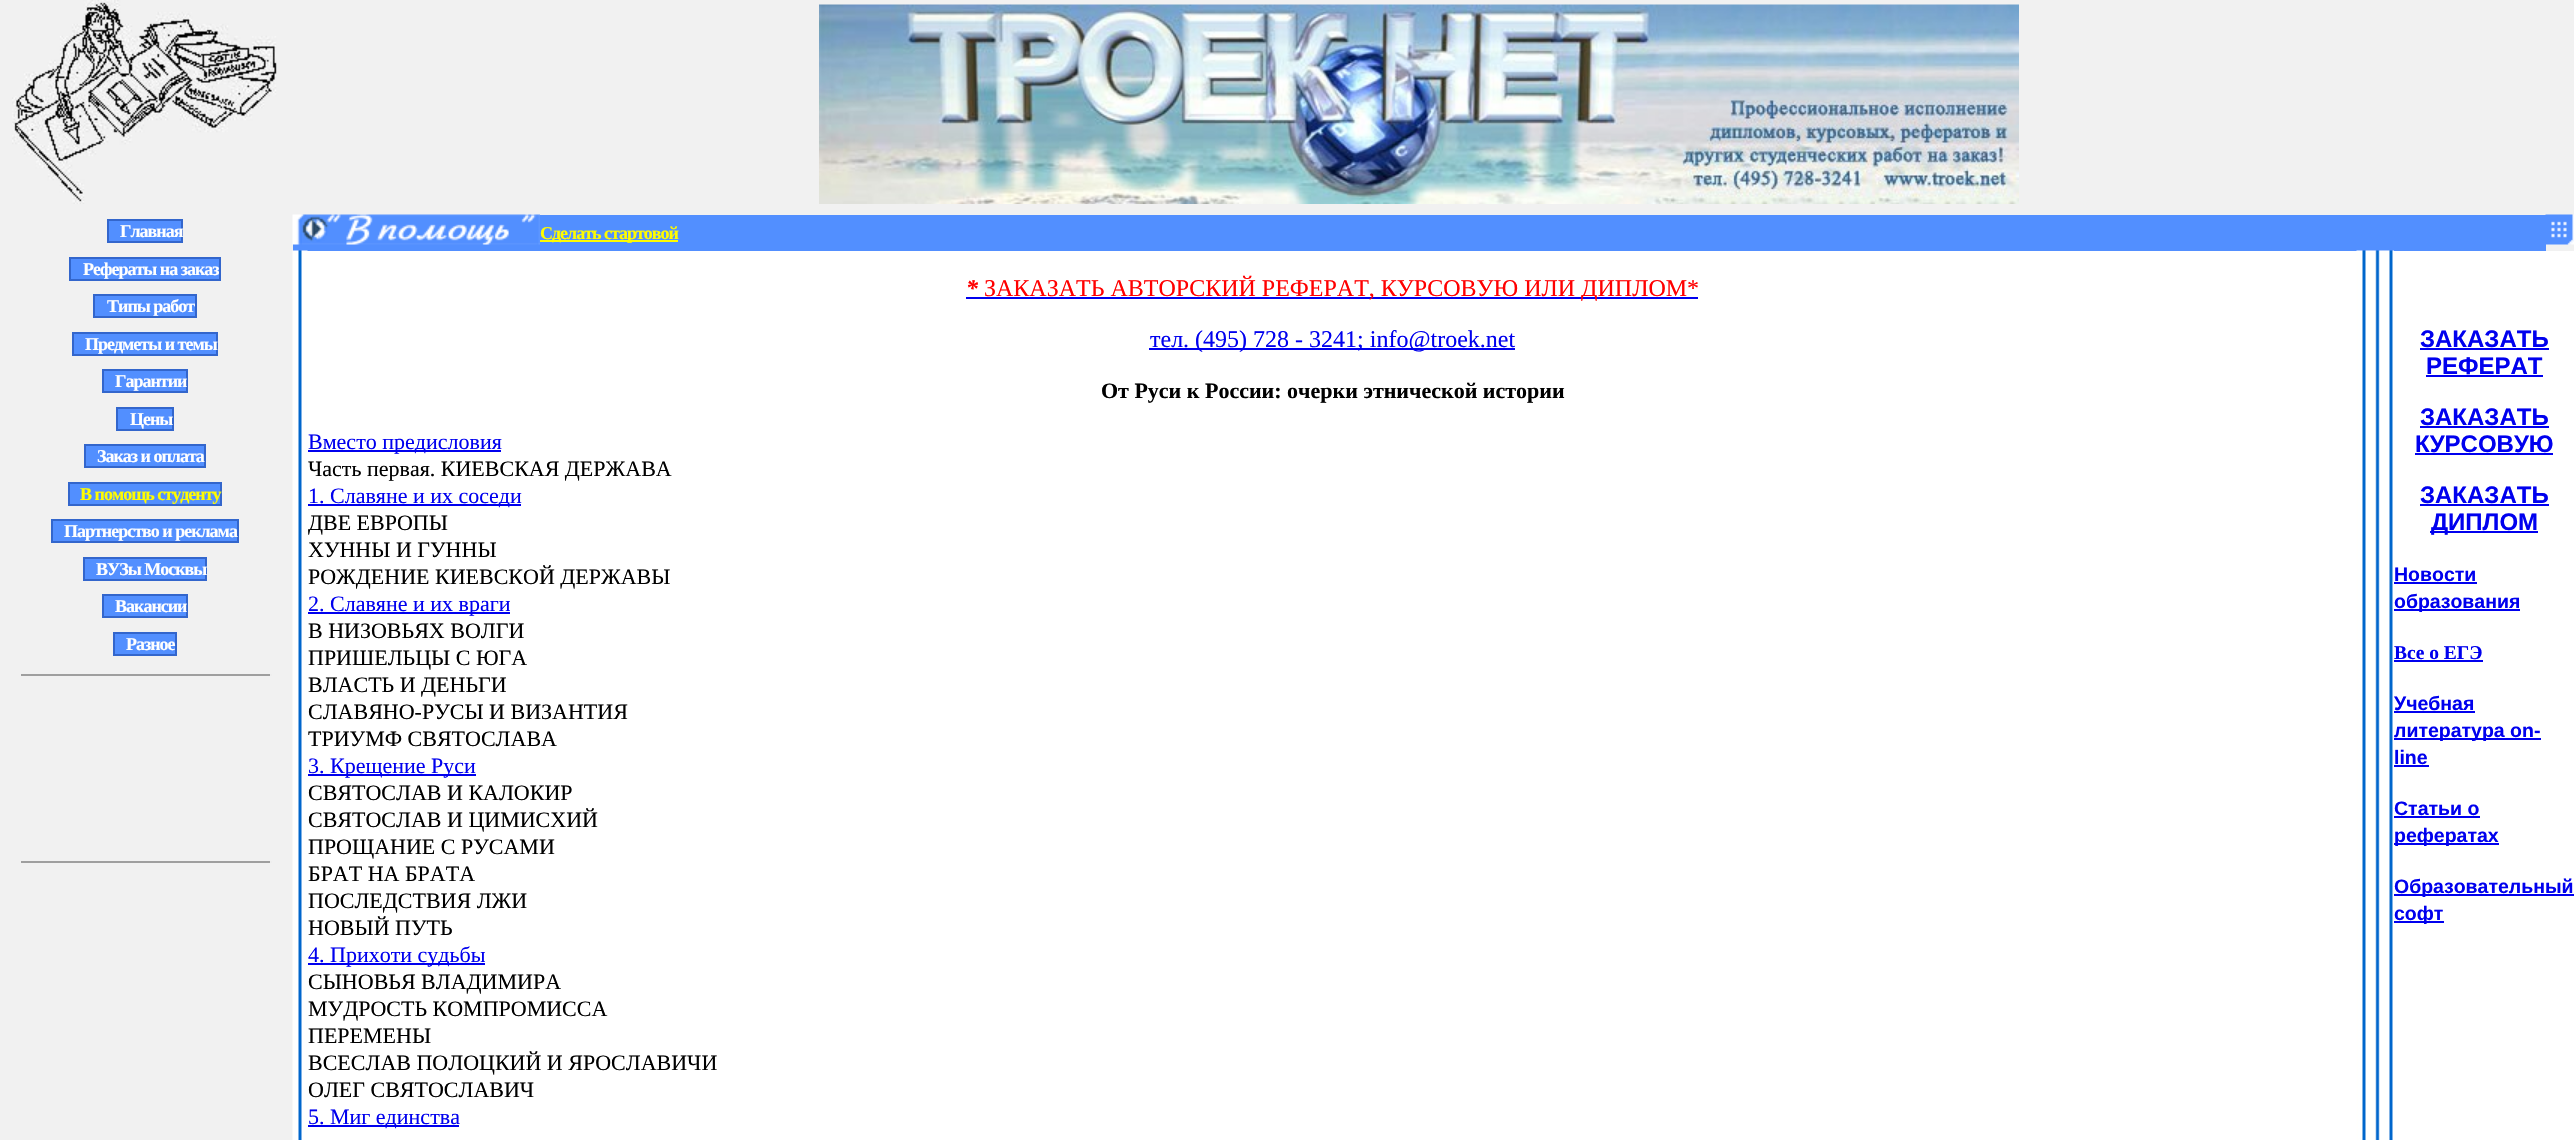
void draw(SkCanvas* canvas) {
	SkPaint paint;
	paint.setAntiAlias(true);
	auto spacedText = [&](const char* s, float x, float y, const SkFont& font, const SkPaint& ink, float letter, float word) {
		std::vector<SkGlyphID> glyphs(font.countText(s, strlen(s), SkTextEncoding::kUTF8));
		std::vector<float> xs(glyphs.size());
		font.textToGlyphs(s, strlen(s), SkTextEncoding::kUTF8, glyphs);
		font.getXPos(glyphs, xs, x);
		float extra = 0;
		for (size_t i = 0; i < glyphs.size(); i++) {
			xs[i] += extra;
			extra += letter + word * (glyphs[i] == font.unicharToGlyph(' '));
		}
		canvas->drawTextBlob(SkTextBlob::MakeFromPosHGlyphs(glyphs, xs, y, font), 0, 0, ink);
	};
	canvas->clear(0xfff1f1f1);
	canvas->drawImageRect(SkImages::DeferredFromEncodedData(SkData::MakeFromFileName("img1.png")), SkRect::MakeXYWH(12, 0, 265, 204), SkSamplingOptions());
	paint.setColor(0xff528fff);
	canvas->drawRect(SkRect::MakeXYWH(108, 220, 74, 22), paint);
	paint.setStroke(true);
	paint.setStrokeWidth(2);
	paint.setColor(0xff3366cc);
	canvas->drawRect(SkRect::MakeXYWH(108, 220, 74, 22), paint);
	SkFont f1(fontMgr->matchFamilyStyle("Liberation Serif", SkFontStyle::Bold()), 18);
	f1.setSubpixel(true);
	paint.setStroke(false);
	paint.setColor(0xffffffff);
	spacedText("Главная", 120, 237, f1, paint, -1, 0);
	paint.setColor(0xff528fff);
	canvas->drawRect(SkRect::MakeXYWH(70, 258, 150, 22), paint);
	paint.setStroke(true);
	paint.setColor(0xff3366cc);
	canvas->drawRect(SkRect::MakeXYWH(70, 258, 150, 22), paint);
	paint.setStroke(false);
	paint.setColor(0xffffffff);
	spacedText("Рефераты на заказ", 83, 275, f1, paint, -1, 0);
	paint.setColor(0xff528fff);
	canvas->drawRect(SkRect::MakeXYWH(94, 295, 102, 22), paint);
	paint.setStroke(true);
	paint.setColor(0xff3366cc);
	canvas->drawRect(SkRect::MakeXYWH(94, 295, 102, 22), paint);
	paint.setStroke(false);
	paint.setColor(0xffffffff);
	spacedText("Типы работ", 107, 312, f1, paint, -1, 0);
	paint.setColor(0xff528fff);
	canvas->drawRect(SkRect::MakeXYWH(73, 333, 144, 22), paint);
	paint.setStroke(true);
	paint.setColor(0xff3366cc);
	canvas->drawRect(SkRect::MakeXYWH(73, 333, 144, 22), paint);
	paint.setStroke(false);
	paint.setColor(0xffffffff);
	spacedText("Предметы и темы", 85, 350, f1, paint, -1, 0);
	paint.setColor(0xff528fff);
	canvas->drawRect(SkRect::MakeXYWH(103, 370, 84, 22), paint);
	paint.setStroke(true);
	paint.setColor(0xff3366cc);
	canvas->drawRect(SkRect::MakeXYWH(103, 370, 84, 22), paint);
	paint.setStroke(false);
	paint.setColor(0xffffffff);
	spacedText("Гарантии", 115, 387, f1, paint, -1, 0);
	paint.setColor(0xff528fff);
	canvas->drawRect(SkRect::MakeXYWH(117, 408, 56, 22), paint);
	paint.setStroke(true);
	paint.setColor(0xff3366cc);
	canvas->drawRect(SkRect::MakeXYWH(117, 408, 56, 22), paint);
	paint.setStroke(false);
	paint.setColor(0xffffffff);
	spacedText("Цены", 130, 425, f1, paint, -1, 0);
	paint.setColor(0xff528fff);
	canvas->drawRect(SkRect::MakeXYWH(85, 445, 120, 22), paint);
	paint.setStroke(true);
	paint.setColor(0xff3366cc);
	canvas->drawRect(SkRect::MakeXYWH(85, 445, 120, 22), paint);
	paint.setStroke(false);
	paint.setColor(0xffffffff);
	spacedText("Заказ и оплата", 97, 462, f1, paint, -1, 0);
	paint.setColor(0xff528fff);
	canvas->drawRect(SkRect::MakeXYWH(69, 483, 152, 22), paint);
	paint.setStroke(true);
	paint.setColor(0xff3366cc);
	canvas->drawRect(SkRect::MakeXYWH(69, 483, 152, 22), paint);
	paint.setStroke(false);
	paint.setColor(0xfffffc00);
	spacedText("В помощь студенту", 80, 500, f1, paint, -1, 0);
	paint.setColor(0xff528fff);
	canvas->drawRect(SkRect::MakeXYWH(52, 520, 186, 22), paint);
	paint.setStroke(true);
	paint.setColor(0xff3366cc);
	canvas->drawRect(SkRect::MakeXYWH(52, 520, 186, 22), paint);
	paint.setStroke(false);
	paint.setColor(0xffffffff);
	spacedText("Партнерство и реклама", 64, 537, f1, paint, -1, 0);
	paint.setColor(0xff528fff);
	canvas->drawRect(SkRect::MakeXYWH(84, 558, 122, 22), paint);
	paint.setStroke(true);
	paint.setColor(0xff3366cc);
	canvas->drawRect(SkRect::MakeXYWH(84, 558, 122, 22), paint);
	paint.setStroke(false);
	paint.setColor(0xffffffff);
	spacedText("ВУЗы Москвы", 96, 575, f1, paint, -1, 0);
	paint.setColor(0xff528fff);
	canvas->drawRect(SkRect::MakeXYWH(103, 595, 84, 22), paint);
	paint.setStroke(true);
	paint.setColor(0xff3366cc);
	canvas->drawRect(SkRect::MakeXYWH(103, 595, 84, 22), paint);
	paint.setStroke(false);
	paint.setColor(0xffffffff);
	spacedText("Вакансии", 115, 612, f1, paint, -1, 0);
	paint.setColor(0xff528fff);
	canvas->drawRect(SkRect::MakeXYWH(114, 633, 62, 22), paint);
	paint.setStroke(true);
	paint.setColor(0xff3366cc);
	canvas->drawRect(SkRect::MakeXYWH(114, 633, 62, 22), paint);
	paint.setStroke(false);
	paint.setColor(0xffffffff);
	spacedText("Разное", 126, 650, f1, paint, -1, 0);
	paint.setColor(0xff9f9f9f);
	canvas->drawRect(SkRect::MakeXYWH(21, 674, 251, 2), paint);
	paint.setColor(0xffeeeeee);
	canvas->drawRect(SkRect::MakeXYWH(270, 674, 2, 2), paint);
	paint.setColor(0xff9f9f9f);
	canvas->drawRect(SkRect::MakeXYWH(21, 861, 251, 2), paint);
	paint.setColor(0xffeeeeee);
	canvas->drawRect(SkRect::MakeXYWH(270, 861, 2, 2), paint);
	canvas->drawImageRect(SkImages::DeferredFromEncodedData(SkData::MakeFromFileName("img2.png")), SkRect::MakeXYWH(819, 4, 1200, 200), SkSamplingOptions());
	paint.setColor(0xff528fff);
	canvas->drawRect(SkRect::MakeXYWH(293, 244, 247, 7), paint);
	canvas->drawImageRect(SkImages::DeferredFromEncodedData(SkData::MakeFromFileName("img3.png")), SkRect::MakeXYWH(292, 214, 248, 31), SkSamplingOptions());
	canvas->drawRect(SkRect::MakeXYWH(540, 215, 2006, 36), paint);
	paint.setColor(0xfffffc00);
	canvas->drawRect(SkRect::MakeXYWH(540, 240, 138, 2), paint);
	spacedText("Сделать стартовой", 540, 239, f1, paint, -1, 0);
	canvas->drawImageRect(SkImages::DeferredFromEncodedData(SkData::MakeFromFileName("img4.png")), SkRect::MakeXYWH(2545, 214, 29, 31), SkSamplingOptions());
	paint.setColor(0xffffffff);
	canvas->drawRect(SkRect::MakeXYWH(307, 251, 2267, 889), paint);
	canvas->drawImageRect(SkImages::DeferredFromEncodedData(SkData::MakeFromFileName("img5.png")), SkRect::MakeXYWH(292, 250, 16, 890), SkSamplingOptions());
	SkFont f2(fontMgr->matchFamilyStyle("Liberation Serif", SkFontStyle::BoldItalic()), 24);
	f2.setSubpixel(true);
	paint.setColor(0xffff0000);
	canvas->drawString("*", 966, 296, f2, paint);
	paint.setColor(0xff0000ee);
	canvas->drawRect(SkRect::MakeXYWH(966, 297, 732, 2), paint);
	SkFont f3(fontMgr->matchFamilyStyle("Liberation Serif", SkFontStyle::Normal()), 24);
	f3.setSubpixel(true);
	paint.setColor(0xffff0000);
	canvas->drawString("ЗАКАЗАТЬ АВТОРСКИЙ РЕФЕРАТ, КУРСОВУЮ ИЛИ ДИПЛОМ*", 984, 296, f3, paint);
	paint.setColor(0xff0000ee);
	canvas->drawRect(SkRect::MakeXYWH(1149, 348, 366, 2), paint);
	canvas->drawString("тел. (495) 728 - 3241; info@troek.net", 1150, 347, f3, paint);
	SkFont f4(fontMgr->matchFamilyStyle("Liberation Serif", SkFontStyle::Bold()), 22);
	f4.setSubpixel(true);
	paint.setColor(0xff000000);
	canvas->drawString("От Руси к России: очерки этнической истории", 1101, 398, f4, paint);
	paint.setColor(0xff0000ee);
	canvas->drawRect(SkRect::MakeXYWH(308, 450, 193, 2), paint);
	SkFont f5(fontMgr->matchFamilyStyle("Liberation Serif", SkFontStyle::Normal()), 22);
	f5.setSubpixel(true);
	canvas->drawString("Вместо предисловия", 308, 449, f5, paint);
	paint.setColor(0xff000000);
	canvas->drawString("Часть первая. КИЕВСКАЯ ДЕРЖАВА", 308, 476, f5, paint);
	paint.setColor(0xff0000ee);
	canvas->drawRect(SkRect::MakeXYWH(308, 504, 213, 2), paint);
	canvas->drawString("1. Славяне и их соседи", 308, 503, f5, paint);
	paint.setColor(0xff000000);
	canvas->drawString("ДВЕ ЕВРОПЫ", 308, 530, f5, paint);
	canvas->drawString("ХУННЫ И ГУННЫ", 308, 557, f5, paint);
	canvas->drawString("РОЖДЕНИЕ КИЕВСКОЙ ДЕРЖАВЫ", 308, 584, f5, paint);
	paint.setColor(0xff0000ee);
	canvas->drawRect(SkRect::MakeXYWH(308, 612, 202, 2), paint);
	canvas->drawString("2. Славяне и их враги", 308, 611, f5, paint);
	paint.setColor(0xff000000);
	canvas->drawString("В НИЗОВЬЯХ ВОЛГИ", 308, 638, f5, paint);
	canvas->drawString("ПРИШЕЛЬЦЫ С ЮГА", 308, 665, f5, paint);
	canvas->drawString("ВЛАСТЬ И ДЕНЬГИ", 308, 692, f5, paint);
	canvas->drawString("СЛАВЯНО-РУСЫ И ВИЗАНТИЯ", 308, 719, f5, paint);
	canvas->drawString("ТРИУМФ СВЯТОСЛАВА", 308, 746, f5, paint);
	paint.setColor(0xff0000ee);
	canvas->drawRect(SkRect::MakeXYWH(308, 774, 168, 2), paint);
	canvas->drawString("3. Крещение Руси", 308, 773, f5, paint);
	paint.setColor(0xff000000);
	canvas->drawString("СВЯТОСЛАВ И КАЛОКИР", 308, 800, f5, paint);
	canvas->drawString("СВЯТОСЛАВ И ЦИМИСХИЙ", 308, 827, f5, paint);
	canvas->drawString("ПРОЩАНИЕ С РУСАМИ", 308, 854, f5, paint);
	canvas->drawString("БРАТ НА БРАТА", 308, 881, f5, paint);
	canvas->drawString("ПОСЛЕДСТВИЯ ЛЖИ", 308, 908, f5, paint);
	canvas->drawString("НОВЫЙ ПУТЬ", 308, 935, f5, paint);
	paint.setColor(0xff0000ee);
	canvas->drawRect(SkRect::MakeXYWH(308, 963, 177, 2), paint);
	canvas->drawString("4. Прихоти судьбы", 308, 962, f5, paint);
	paint.setColor(0xff000000);
	canvas->drawString("СЫНОВЬЯ ВЛАДИМИРА", 308, 989, f5, paint);
	canvas->drawString("МУДРОСТЬ КОМПРОМИССА", 308, 1016, f5, paint);
	canvas->drawString("ПЕРЕМЕНЫ", 308, 1043, f5, paint);
	canvas->drawString("ВСЕСЛАВ ПОЛОЦКИЙ И ЯРОСЛАВИЧИ", 308, 1070, f5, paint);
	canvas->drawString("ОЛЕГ СВЯТОСЛАВИЧ", 308, 1097, f5, paint);
	paint.setColor(0xff0000ee);
	canvas->drawRect(SkRect::MakeXYWH(308, 1125, 151, 2), paint);
	canvas->drawString("5. Миг единства", 308, 1124, f5, paint);
	canvas->drawImageRect(SkImages::DeferredFromEncodedData(SkData::MakeFromFileName("img6.png")), SkRect::MakeXYWH(2356, 250, 38, 890), SkSamplingOptions());
	SkFont f6(fontMgr->matchFamilyStyle("Liberation Sans", SkFontStyle::Bold()), 24);
	f6.setSubpixel(true);
	canvas->drawString("ЗАКАЗАТЬ", 2420, 347, f6, paint);
	canvas->drawRect(SkRect::MakeXYWH(2420, 348, 129, 2), paint);
	canvas->drawString("РЕФЕРАТ", 2426, 374, f6, paint);
	canvas->drawRect(SkRect::MakeXYWH(2426, 375, 117, 2), paint);
	canvas->drawString("ЗАКАЗАТЬ", 2420, 425, f6, paint);
	canvas->drawRect(SkRect::MakeXYWH(2420, 426, 129, 2), paint);
	canvas->drawString("КУРСОВУЮ", 2415, 452, f6, paint);
	canvas->drawRect(SkRect::MakeXYWH(2415, 453, 138, 2), paint);
	canvas->drawString("ЗАКАЗАТЬ", 2420, 503, f6, paint);
	canvas->drawRect(SkRect::MakeXYWH(2420, 504, 129, 2), paint);
	canvas->drawRect(SkRect::MakeXYWH(2430, 531, 108, 2), paint);
	canvas->drawString("ДИПЛОМ", 2431, 530, f6, paint);
	SkFont f7(fontMgr->matchFamilyStyle("Liberation Sans", SkFontStyle::Bold()), 19.5);
	f7.setSubpixel(true);
	canvas->drawString("Новости", 2394, 581, f7, paint);
	canvas->drawRect(SkRect::MakeXYWH(2394, 582, 83, 2), paint);
	canvas->drawRect(SkRect::MakeXYWH(2394, 609, 126, 2), paint);
	canvas->drawString("образования", 2394, 608, f7, paint);
	SkFont f8(fontMgr->matchFamilyStyle("Liberation Serif", SkFontStyle::Bold()), 19.5);
	f8.setSubpixel(true);
	canvas->drawString("Все о ЕГЭ", 2394, 659, f8, paint);
	canvas->drawRect(SkRect::MakeXYWH(2394, 660, 89, 2), paint);
	canvas->drawString("Учебная", 2394, 710, f7, paint);
	canvas->drawRect(SkRect::MakeXYWH(2394, 711, 81, 2), paint);
	canvas->drawRect(SkRect::MakeXYWH(2394, 738, 147, 2), paint);
	canvas->drawString("литература on-", 2394, 737, f7, paint);
	canvas->drawString("line", 2394, 764, f7, paint);
	canvas->drawRect(SkRect::MakeXYWH(2394, 765, 35, 2), paint);
	canvas->drawString("Статьи о", 2394, 815, f7, paint);
	canvas->drawRect(SkRect::MakeXYWH(2394, 816, 86, 2), paint);
	canvas->drawRect(SkRect::MakeXYWH(2394, 843, 105, 2), paint);
	canvas->drawString("рефератах", 2394, 842, f7, paint);
	canvas->drawRect(SkRect::MakeXYWH(2394, 894, 180, 2), paint);
	canvas->drawString("Образовательный", 2394, 893, f7, paint);
	canvas->drawRect(SkRect::MakeXYWH(2394, 921, 50, 2), paint);
	canvas->drawString("софт", 2394, 920, f7, paint);
}
